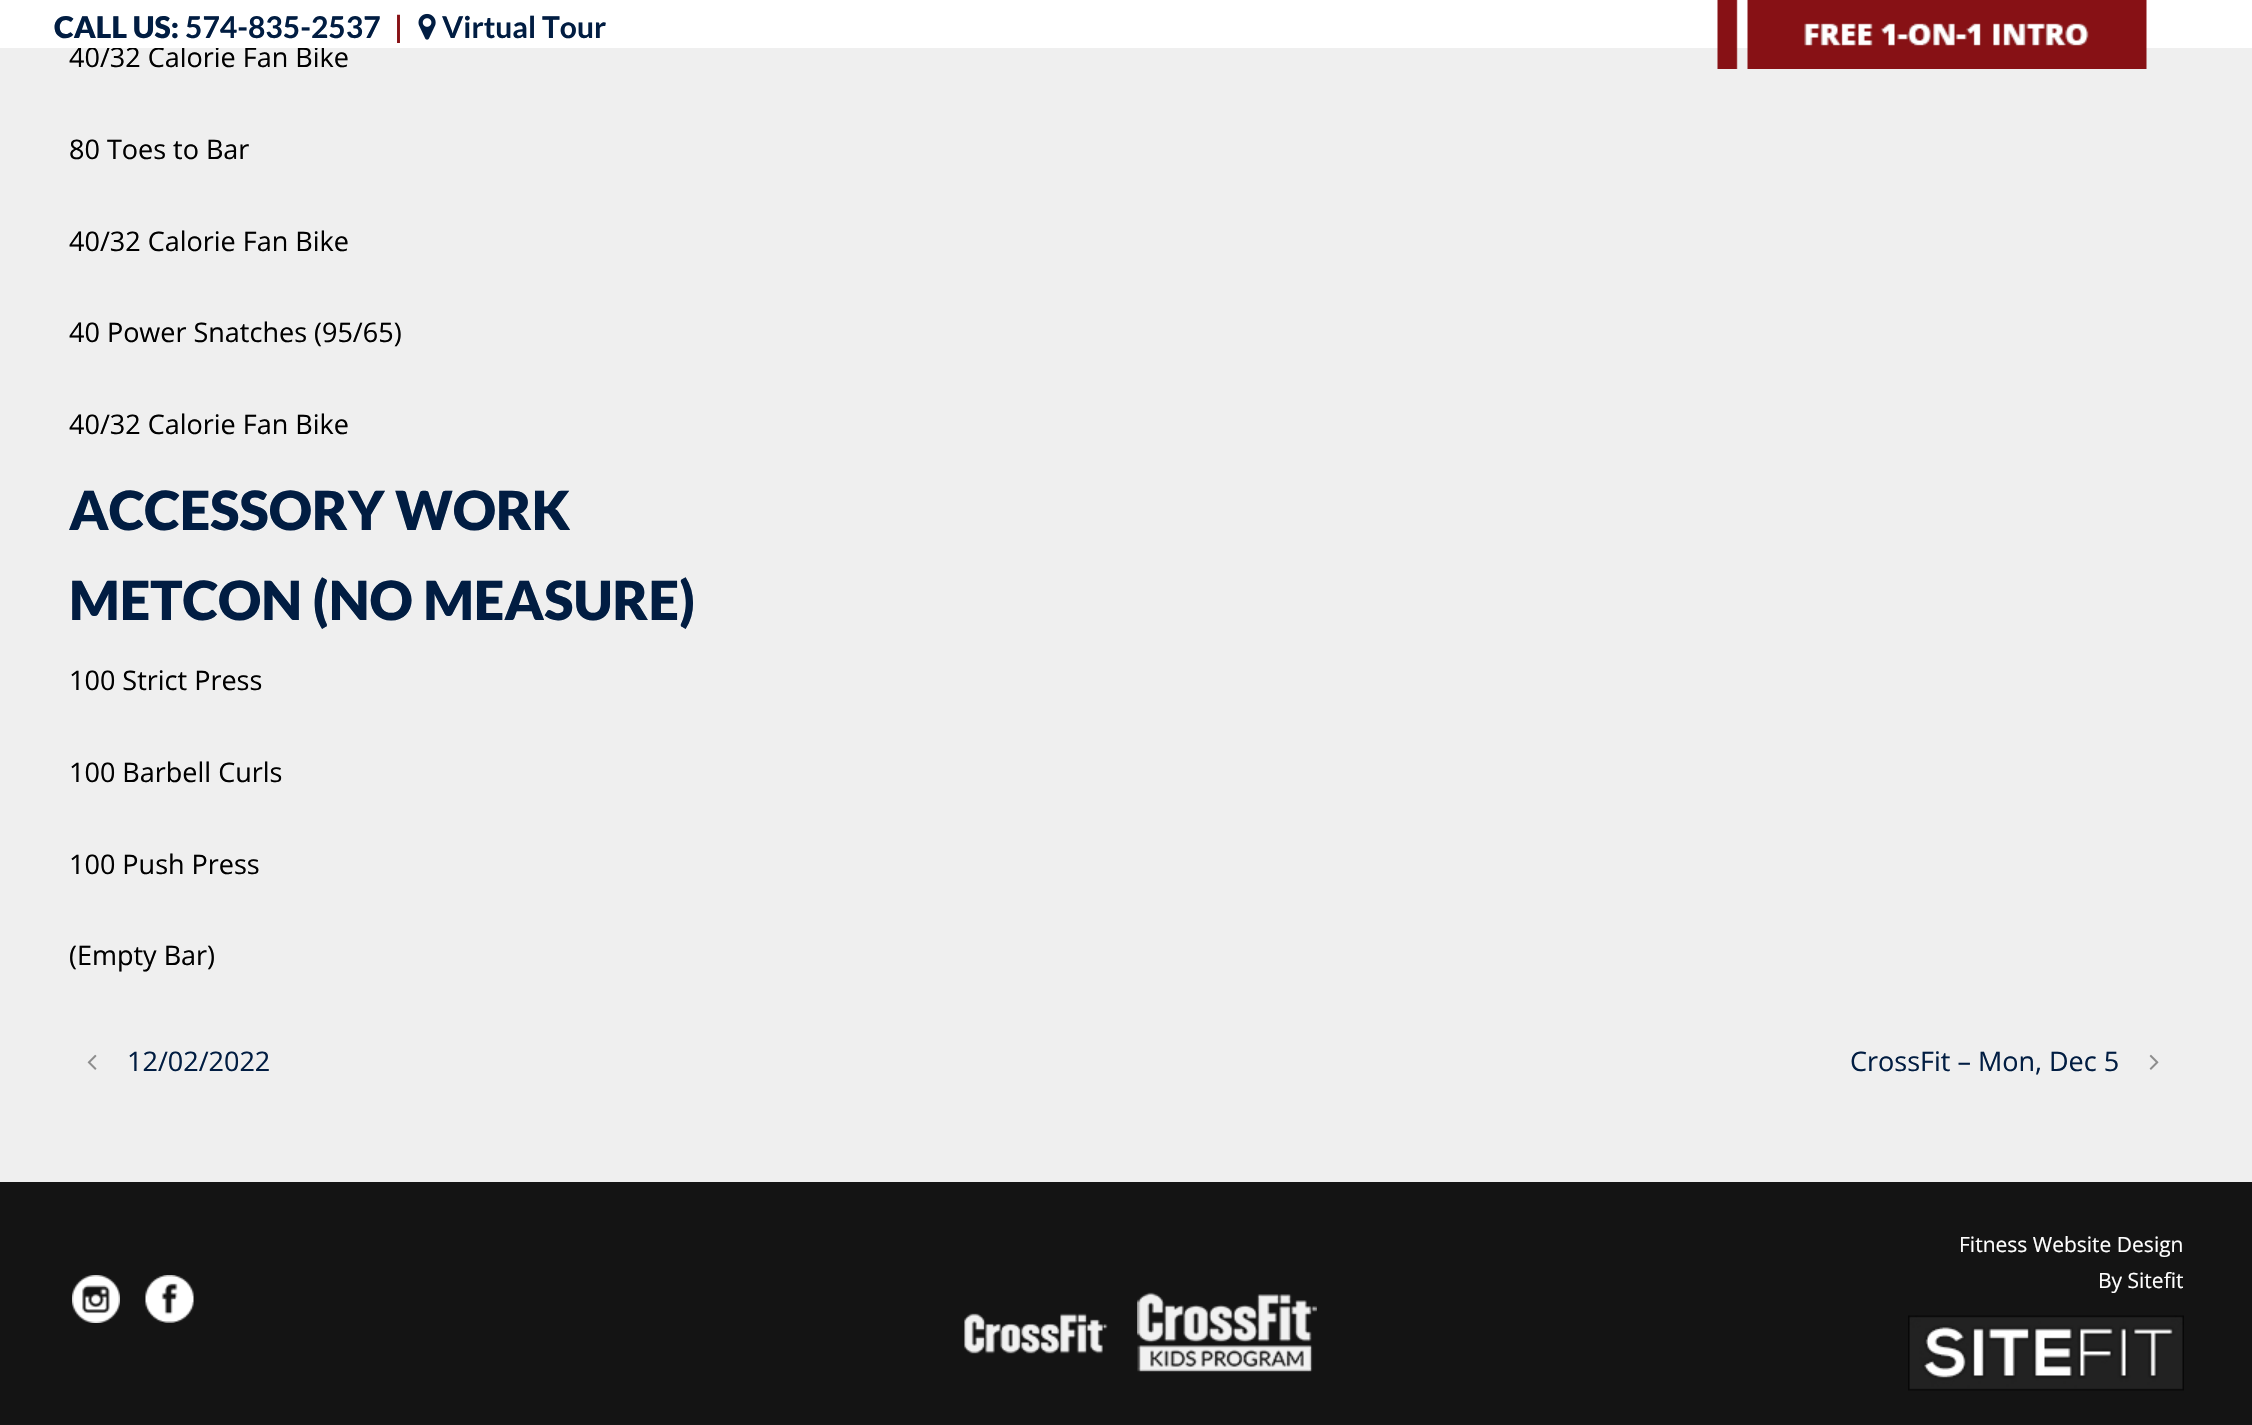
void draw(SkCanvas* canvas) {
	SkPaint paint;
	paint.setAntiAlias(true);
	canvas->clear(0xffefefef);
	SkFont f1(fontMgr->matchFamilyStyle("Open Sans", SkFontStyle::Normal()), 27);
	f1.setSubpixel(true);
	paint.setColor(0xff000000);
	canvas->drawString("40/32 Calorie Fan Bike", 69, 67, f1, paint);
	paint.setColor(0xffffffff);
	canvas->drawRect(SkRect::MakeXYWH(0, 0, 2252, 48), paint);
	SkFont f2(fontMgr->matchFamilyStyle("Lato", SkFontStyle(900, SkFontStyle::kNormal_Width, SkFontStyle::kUpright_Slant)), 30);
	f2.setSubpixel(true);
	paint.setColor(0xff011d42);
	canvas->drawString("CALL US:", 54, 38, f2, paint);
	SkFont f3(fontMgr->matchFamilyStyle("Lato", SkFontStyle::Bold()), 30);
	f3.setSubpixel(true);
	canvas->drawString("574-835-2537", 185, 38, f3, paint);
	paint.setColor(0xff871115);
	canvas->drawString("|", 394, 38, f3, paint);
	canvas->drawImageRect(SkImages::DeferredFromEncodedData(SkData::MakeFromFileName("img1.png")), SkRect::MakeXYWH(418, 13, 18, 27), SkSamplingOptions());
	paint.setColor(0xff011d42);
	canvas->drawString("Virtual Tour", 442, 38, f3, paint);
	canvas->drawImageRect(SkImages::DeferredFromEncodedData(SkData::MakeFromFileName("img2.png")), SkRect::MakeXYWH(1717, 0, 430, 69), SkSamplingOptions());
	paint.setColor(0xff000000);
	canvas->drawString("80 Toes to Bar", 69, 159, f1, paint);
	canvas->drawString("40/32 Calorie Fan Bike", 69, 251, f1, paint);
	canvas->drawString("40 Power Snatches (95/65)", 69, 342, f1, paint);
	canvas->drawString("40/32 Calorie Fan Bike", 69, 434, f1, paint);
	SkFont f4(fontMgr->matchFamilyStyle("Lato", SkFontStyle(900, SkFontStyle::kNormal_Width, SkFontStyle::kUpright_Slant)), 54);
	f4.setSubpixel(true);
	paint.setColor(0xff011d42);
	canvas->drawString("ACCESSORY WORK", 69, 530, f4, paint);
	canvas->drawString("METCON (NO MEASURE)", 69, 620, f4, paint);
	paint.setColor(0xff000000);
	canvas->drawString("100 Strict Press", 69, 690, f1, paint);
	canvas->drawString("100 Barbell Curls", 69, 782, f1, paint);
	canvas->drawString("100 Push Press", 69, 874, f1, paint);
	canvas->drawString("(Empty Bar)", 69, 965, f1, paint);
	canvas->drawImageRect(SkImages::DeferredFromEncodedData(SkData::MakeFromFileName("img3.png")), SkRect::MakeXYWH(87, 1054, 10, 16), SkSamplingOptions());
	paint.setColor(0xff011d42);
	canvas->drawString("12/02/2022", 127, 1071, f1, paint);
	canvas->drawString("CrossFit – Mon, Dec 5", 1850, 1071, f1, paint);
	canvas->drawImageRect(SkImages::DeferredFromEncodedData(SkData::MakeFromFileName("img4.png")), SkRect::MakeXYWH(2149, 1054, 10, 16), SkSamplingOptions());
	paint.setColor(0xff141414);
	canvas->drawRect(SkRect::MakeXYWH(0, 1182, 2252, 242), paint);
	SkFont f5(fontMgr->matchFamilyStyle("Open Sans", SkFontStyle::Normal()), 21);
	f5.setSubpixel(true);
	paint.setColor(0xffffffff);
	canvas->drawString("Fitness Website Design", 1959, 1252, f5, paint);
	canvas->drawString("By Sitefit", 2098, 1288, f5, paint);
	canvas->drawImageRect(SkImages::DeferredFromEncodedData(SkData::MakeFromFileName("img5.png")), SkRect::MakeXYWH(1908, 1315, 276, 76), SkSamplingOptions());
	canvas->drawImageRect(SkImages::DeferredFromEncodedData(SkData::MakeFromFileName("img6.png")), SkRect::MakeXYWH(72, 1275, 48, 48), SkSamplingOptions());
	canvas->drawImageRect(SkImages::DeferredFromEncodedData(SkData::MakeFromFileName("img7.png")), SkRect::MakeXYWH(145, 1275, 49, 48), SkSamplingOptions());
	canvas->drawImageRect(SkImages::DeferredFromEncodedData(SkData::MakeFromFileName("img8.png")), SkRect::MakeXYWH(964, 1313, 144, 41), SkSamplingOptions());
	canvas->drawImageRect(SkImages::DeferredFromEncodedData(SkData::MakeFromFileName("img9.png")), SkRect::MakeXYWH(1137, 1292, 180, 80), SkSamplingOptions());
	paint.setColor(0xff161616);
	canvas->drawRect(SkRect::MakeXYWH(0, 1424, 2252, 1), paint);
}
